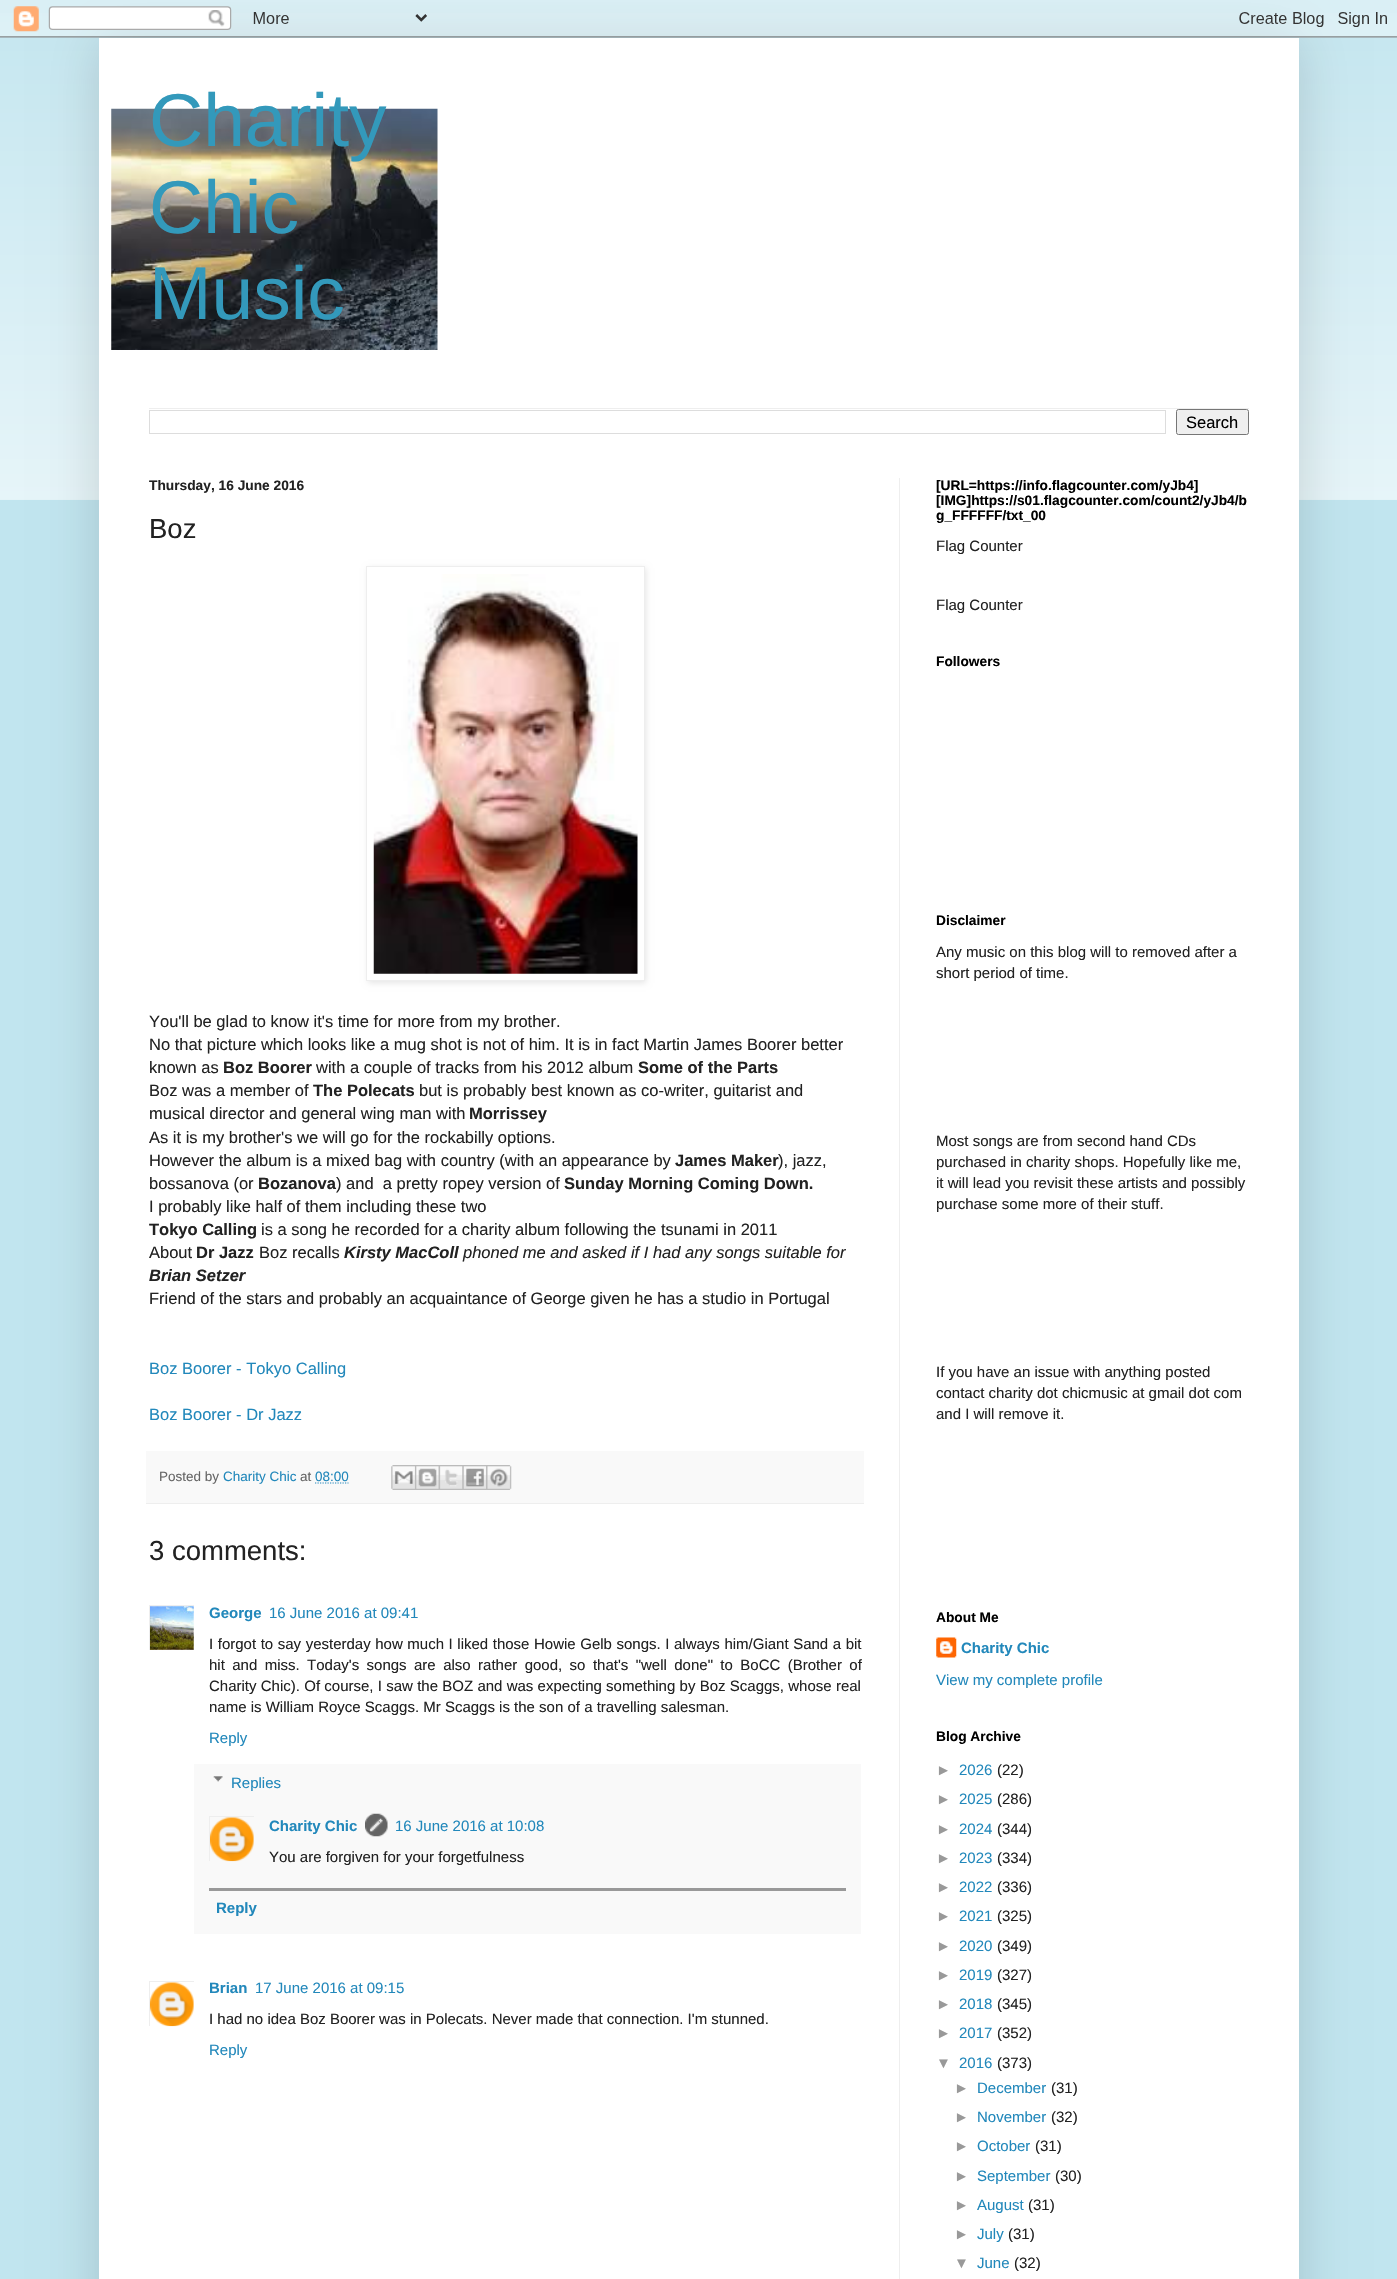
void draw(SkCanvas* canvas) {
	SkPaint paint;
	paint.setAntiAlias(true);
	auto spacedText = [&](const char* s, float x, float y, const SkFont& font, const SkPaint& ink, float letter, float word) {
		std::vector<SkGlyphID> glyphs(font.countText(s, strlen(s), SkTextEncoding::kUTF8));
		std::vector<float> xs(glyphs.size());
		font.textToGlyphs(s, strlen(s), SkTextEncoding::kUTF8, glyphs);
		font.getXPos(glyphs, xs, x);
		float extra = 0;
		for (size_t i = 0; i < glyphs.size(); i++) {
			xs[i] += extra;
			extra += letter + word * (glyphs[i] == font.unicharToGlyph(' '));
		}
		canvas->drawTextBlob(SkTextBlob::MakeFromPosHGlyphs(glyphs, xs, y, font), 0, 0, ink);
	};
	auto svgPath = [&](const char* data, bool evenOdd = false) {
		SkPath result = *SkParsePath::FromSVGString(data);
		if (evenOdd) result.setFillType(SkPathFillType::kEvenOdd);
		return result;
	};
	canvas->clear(0xffc1e5ef);
	canvas->drawImageRect(SkImages::DeferredFromEncodedData(SkData::MakeFromFileName("img2.png")), SkRect::MakeXYWH(0, 13, 1397, 487), SkSamplingOptions());
	paint.setColor(0x26000000);
	paint.setMaskFilter(SkMaskFilter::MakeBlur(kNormal_SkBlurStyle, 25));
	canvas->drawRect(SkRect::MakeXYWH(99, 38, 1200, 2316), paint);
	paint.setMaskFilter(nullptr);
	canvas->drawImageRect(SkImages::DeferredFromEncodedData(SkData::MakeFromFileName("img1.png")), SkRect::MakeXYWH(0, 0, 1397, 38), SkSamplingOptions());
	paint.setColor(0xffffffff);
	canvas->drawRect(SkRect::MakeXYWH(99, 38, 1200, 2241), paint);
	canvas->drawImageRect(SkImages::DeferredFromEncodedData(SkData::MakeFromFileName("img3.png")), SkRect::MakeXYWH(111, 108, 327, 242), SkSamplingOptions());
	SkFont f1(fontMgr->matchFamilyStyle("Liberation Sans", SkFontStyle::Normal()), 75);
	f1.setSubpixel(true);
	paint.setColor(0xff3399bb);
	canvas->drawString("Charity", 149, 146, f1, paint);
	canvas->drawString("Chic", 149, 233, f1, paint);
	canvas->drawString("Music", 149, 319, f1, paint);
	paint.setColor(0xffeeeeee);
	canvas->drawRect(SkRect::MakeXYWH(149, 408, 1100, 1), paint);
	paint.setStroke(true);
	paint.setStrokeWidth(1);
	paint.setColor(0xffdddddd);
	canvas->drawRect(SkRect::MakeXYWH(149.5, 410.5, 1016, 23), paint);
	paint.setStroke(false);
	paint.setColor(0xffefefef);
	canvas->drawRoundRect(SkRect::MakeXYWH(1176.5, 409.5, 72, 25), 2, 2, paint);
	paint.setStroke(true);
	paint.setColor(0xff767676);
	canvas->drawRoundRect(SkRect::MakeXYWH(1176.5, 409.5, 72, 25), 2, 2, paint);
	SkFont f2(fontMgr->matchFamilyStyle("Liberation Sans", SkFontStyle::Normal()), 16.5);
	f2.setSubpixel(true);
	paint.setStroke(false);
	paint.setColor(0xff000000);
	canvas->drawString("Search", 1186, 428, f2, paint);
	paint.setColor(0xffeeeeee);
	canvas->drawRect(SkRect::MakeXYWH(899, 478, 1, 1801), paint);
	SkFont f3(fontMgr->matchFamilyStyle("Liberation Sans", SkFontStyle::Bold()), 13.75);
	f3.setSubpixel(true);
	paint.setColor(0xff222222);
	canvas->drawString("Thursday, 16 June 2016", 149, 490, f3, paint);
	SkFont f4(fontMgr->matchFamilyStyle("Liberation Sans", SkFontStyle::Normal()), 27.5);
	f4.setSubpixel(true);
	canvas->drawString("Boz", 149, 538, f4, paint);
	paint.setColor(0x1a000000);
	paint.setMaskFilter(SkMaskFilter::MakeBlur(kNormal_SkBlurStyle, 3));
	canvas->drawRect(SkRect::MakeXYWH(368, 568, 278, 415), paint);
	paint.setMaskFilter(nullptr);
	paint.setColor(0xffffffff);
	canvas->drawRect(SkRect::MakeXYWH(366.5, 566.5, 278, 414), paint);
	paint.setStroke(true);
	paint.setColor(0xffeeeeee);
	canvas->drawRect(SkRect::MakeXYWH(366.5, 566.5, 278, 414), paint);
	canvas->drawImageRect(SkImages::DeferredFromEncodedData(SkData::MakeFromFileName("img4.png")), SkRect::MakeXYWH(373, 574, 265, 400), SkSamplingOptions());
	paint.setStroke(false);
	paint.setColor(0xff222222);
	canvas->drawString("You'll be glad to know it's time for more from my brother.", 149, 1027, f2, paint);
	canvas->drawString("No that picture which looks like a mug shot is not of him. It is in fact Martin James Boorer better", 149, 1050, f2, paint);
	canvas->drawString("known as", 149, 1073, f2, paint);
	SkFont f5(fontMgr->matchFamilyStyle("Liberation Sans", SkFontStyle::Bold()), 16.5);
	f5.setSubpixel(true);
	canvas->drawString("Boz Boorer", 223, 1073, f5, paint);
	canvas->drawString("with a couple of tracks from his 2012 album", 316, 1073, f2, paint);
	canvas->drawString("Some of the Parts", 638, 1073, f5, paint);
	canvas->drawString("Boz was a member of", 149, 1096, f2, paint);
	canvas->drawString("The Polecats", 313, 1096, f5, paint);
	canvas->drawString("but is probably best known as co-writer, guitarist and", 419, 1096, f2, paint);
	canvas->drawString("musical director and general wing man with", 149, 1119, f2, paint);
	canvas->drawString("Morrissey", 469, 1119, f5, paint);
	canvas->drawString("As it is my brother's we will go for the rockabilly options.", 149, 1143, f2, paint);
	canvas->drawString("However the album is a mixed bag with country (with an appearance by", 149, 1166, f2, paint);
	canvas->drawString("James Maker", 675, 1166, f5, paint);
	canvas->drawString("), jazz,", 778, 1166, f2, paint);
	canvas->drawString("bossanova (or", 149, 1189, f2, paint);
	canvas->drawString("Bozanova", 258, 1189, f5, paint);
	canvas->drawString(") and  a pretty ropey version of", 336, 1189, f2, paint);
	canvas->drawString("Sunday Morning Coming Down.", 564, 1189, f5, paint);
	canvas->drawString("I probably like half of them including these two", 149, 1212, f2, paint);
	canvas->drawString("Tokyo Calling", 149, 1235, f5, paint);
	canvas->drawString("is a song he recorded for a charity album following the tsunami in 2011", 261, 1235, f2, paint);
	canvas->drawString("About", 149, 1258, f2, paint);
	canvas->drawString("Dr Jazz", 196, 1258, f5, paint);
	canvas->drawString("Boz recalls", 259, 1258, f2, paint);
	SkFont f6(fontMgr->matchFamilyStyle("Liberation Sans", SkFontStyle::BoldItalic()), 16.5);
	f6.setSubpixel(true);
	canvas->drawString("Kirsty MacColl", 344, 1258, f6, paint);
	SkFont f7(fontMgr->matchFamilyStyle("Liberation Sans", SkFontStyle::Italic()), 16.5);
	f7.setSubpixel(true);
	canvas->drawString("phoned me and asked if I had any songs suitable for", 463, 1258, f7, paint);
	canvas->drawString("Brian Setzer", 149, 1281, f6, paint);
	canvas->drawString("Friend of the stars and probably an acquaintance of George given he has a studio in Portugal", 149, 1304, f2, paint);
	paint.setColor(0xff2288bb);
	canvas->drawString("Boz Boorer - Tokyo Calling", 149, 1374, f2, paint);
	canvas->drawString("Boz Boorer - Dr Jazz", 149, 1420, f2, paint);
	paint.setColor(0xfff9f9f9);
	canvas->drawRect(SkRect::MakeXYWH(146, 1451, 718, 52), paint);
	paint.setColor(0xffeeeeee);
	canvas->drawRect(SkRect::MakeXYWH(146, 1503, 718, 1), paint);
	SkFont f8(fontMgr->matchFamilyStyle("Liberation Sans", SkFontStyle::Normal()), 13.5);
	f8.setSubpixel(true);
	paint.setColor(0xff666666);
	canvas->drawString("Posted by", 159, 1481, f8, paint);
	paint.setColor(0xff2288bb);
	canvas->drawString("Charity Chic", 223, 1481, f8, paint);
	paint.setColor(0xff666666);
	canvas->drawString("at", 300, 1481, f8, paint);
	paint.setColor(0xff2288bb);
	canvas->drawString("08:00", 315, 1481, f8, paint);
	paint.setStroke(true);
	paint.setStrokeWidth(1.2);
	paint.setPathEffect(SkDashPathEffect::Make({{1.25f, 1.25f}}, 0));
	canvas->drawPath(svgPath("M315 1483H348.5"), paint);
	paint.setPathEffect(nullptr);
	canvas->drawImageRect(SkImages::DeferredFromEncodedData(SkData::MakeFromFileName("img5.png")), SkRect::MakeXYWH(391, 1465, 24, 25), SkSamplingOptions());
	canvas->drawImageRect(SkImages::DeferredFromEncodedData(SkData::MakeFromFileName("img6.png")), SkRect::MakeXYWH(415, 1465, 24, 25), SkSamplingOptions());
	canvas->drawImageRect(SkImages::DeferredFromEncodedData(SkData::MakeFromFileName("img7.png")), SkRect::MakeXYWH(438, 1465, 25, 25), SkSamplingOptions());
	canvas->drawImageRect(SkImages::DeferredFromEncodedData(SkData::MakeFromFileName("img8.png")), SkRect::MakeXYWH(462, 1465, 25, 25), SkSamplingOptions());
	canvas->drawImageRect(SkImages::DeferredFromEncodedData(SkData::MakeFromFileName("img9.png")), SkRect::MakeXYWH(486, 1465, 26, 25), SkSamplingOptions());
	paint.setStroke(false);
	paint.setColor(0xff222222);
	canvas->drawString("3 comments:", 149, 1560, f4, paint);
	canvas->save();
	canvas->clipRect(SkRect::MakeXYWH(149, 1605, 45, 45));
	paint.setStroke(true);
	paint.setStrokeWidth(1);
	paint.setColor(0xffeeeeee);
	canvas->drawRect(SkRect::MakeXYWH(149.5, 1605.5, 46, 47), paint);
	canvas->restore();
	canvas->drawImageRect(SkImages::DeferredFromEncodedData(SkData::MakeFromFileName("img10.png")), SkRect::MakeXYWH(150, 1606, 44, 44), SkSamplingOptions());
	SkFont f9(fontMgr->matchFamilyStyle("Liberation Sans", SkFontStyle::Bold()), 15);
	f9.setSubpixel(true);
	paint.setStroke(false);
	paint.setColor(0xff2288bb);
	canvas->drawString("George", 209, 1618, f9, paint);
	SkFont f10(fontMgr->matchFamilyStyle("Liberation Sans", SkFontStyle::Normal()), 15);
	f10.setSubpixel(true);
	canvas->drawString("16 June 2016 at 09:41", 269, 1618, f10, paint);
	paint.setColor(0xff222222);
	spacedText("I forgot to say yesterday how much I liked those Howie Gelb songs. I always him/Giant Sand a bit", 209, 1649, f10, paint, 0, 0.4);
	spacedText("hit and miss. Today's songs are also rather good, so that's \"well done\" to BoCC (Brother of", 209, 1670, f10, paint, 0, 3.25);
	spacedText("Charity Chic). Of course, I saw the BOZ and was expecting something by Boz Scaggs, whose real", 209, 1691, f10, paint, 0, 0.1);
	canvas->drawString("name is William Royce Scaggs. Mr Scaggs is the son of a travelling salesman.", 209, 1712, f10, paint);
	paint.setColor(0xff2288bb);
	canvas->drawString("Reply", 209, 1743, f10, paint);
	paint.setColor(0xfff9f9f9);
	canvas->drawRect(SkRect::MakeXYWH(194, 1764, 667, 170), paint);
	canvas->drawImageRect(SkImages::DeferredFromEncodedData(SkData::MakeFromFileName("img11.png")), SkRect::MakeXYWH(213, 1776, 10, 6), SkSamplingOptions());
	paint.setColor(0xff2288bb);
	canvas->drawString("Replies", 231, 1788, f10, paint);
	canvas->save();
	canvas->clipRect(SkRect::MakeXYWH(209, 1816, 45, 45));
	paint.setStroke(true);
	paint.setColor(0xffeeeeee);
	canvas->drawRect(SkRect::MakeXYWH(209.5, 1816.5, 45, 46), paint);
	canvas->restore();
	canvas->drawImageRect(SkImages::DeferredFromEncodedData(SkData::MakeFromFileName("img12.png")), SkRect::MakeXYWH(210, 1817, 44, 45), SkSamplingOptions());
	paint.setStroke(false);
	paint.setColor(0xff2288bb);
	canvas->drawString("Charity Chic", 269, 1831, f9, paint);
	canvas->drawImageRect(SkImages::DeferredFromEncodedData(SkData::MakeFromFileName("img13.png")), SkRect::MakeXYWH(365, 1813, 23, 24), SkSamplingOptions());
	canvas->drawString("16 June 2016 at 10:08", 395, 1831, f10, paint);
	paint.setColor(0xff222222);
	canvas->drawString("You are forgiven for your forgetfulness", 269, 1862, f10, paint);
	paint.setColor(0xff999999);
	canvas->drawRect(SkRect::MakeXYWH(209, 1888, 637, 3), paint);
	paint.setColor(0xff2288bb);
	canvas->drawString("Reply", 216, 1913, f9, paint);
	canvas->save();
	canvas->clipRect(SkRect::MakeXYWH(149, 1981, 45, 45));
	paint.setStroke(true);
	paint.setColor(0xffeeeeee);
	canvas->drawRect(SkRect::MakeXYWH(149.5, 1981.5, 45, 46), paint);
	canvas->restore();
	canvas->drawImageRect(SkImages::DeferredFromEncodedData(SkData::MakeFromFileName("img14.png")), SkRect::MakeXYWH(150, 1982, 44, 45), SkSamplingOptions());
	paint.setStroke(false);
	paint.setColor(0xff2288bb);
	canvas->drawString("Brian", 209, 1993, f9, paint);
	canvas->drawString("17 June 2016 at 09:15", 255, 1993, f10, paint);
	paint.setColor(0xff222222);
	canvas->drawString("I had no idea Boz Boorer was in Polecats. Never made that connection. I'm stunned.", 209, 2024, f10, paint);
	paint.setColor(0xff2288bb);
	canvas->drawString("Reply", 209, 2055, f10, paint);
	paint.setColor(0xff000000);
	canvas->drawString("[URL=https://info.flagcounter.com/yJb4]", 936, 490, f3, paint);
	canvas->drawString("[IMG]https://s01.flagcounter.com/count2/yJb4/b", 936, 505, f3, paint);
	canvas->drawString("g_FFFFFF/txt_00", 936, 520, f3, paint);
	paint.setColor(0xff222222);
	canvas->drawString("Flag Counter", 936, 551, f10, paint);
	canvas->drawString("Flag Counter", 936, 610, f10, paint);
	paint.setColor(0xff000000);
	canvas->drawString("Followers", 936, 666, f3, paint);
	canvas->drawString("Disclaimer", 936, 925, f3, paint);
	paint.setColor(0xff222222);
	canvas->drawString("Any music on this blog will to removed after a", 936, 957, f10, paint);
	canvas->drawString("short period of time.", 936, 978, f10, paint);
	canvas->drawString("Most songs are from second hand CDs", 936, 1146, f10, paint);
	canvas->drawString("purchased in charity shops. Hopefully like me,", 936, 1167, f10, paint);
	canvas->drawString("it will lead you revisit these artists and possibly", 936, 1188, f10, paint);
	canvas->drawString("purchase some more of their stuff.", 936, 1209, f10, paint);
	canvas->drawString("If you have an issue with anything posted", 936, 1377, f10, paint);
	canvas->drawString("contact charity dot chicmusic at gmail dot com", 936, 1398, f10, paint);
	canvas->drawString("and I will remove it.", 936, 1419, f10, paint);
	paint.setColor(0xff000000);
	canvas->drawString("About Me", 936, 1622, f3, paint);
	canvas->drawImageRect(SkImages::DeferredFromEncodedData(SkData::MakeFromFileName("img15.png")), SkRect::MakeXYWH(936, 1637, 21, 21), SkSamplingOptions());
	paint.setColor(0xff2288bb);
	canvas->drawString("Charity Chic", 961, 1653, f9, paint);
	canvas->drawString("View my complete profile", 936, 1685, f10, paint);
	paint.setColor(0xff000000);
	canvas->drawString("Blog Archive", 936, 1741, f3, paint);
	paint.setColor(0xff999999);
	canvas->drawString("►", 936, 1775, f10, paint);
	paint.setColor(0xff2288bb);
	canvas->drawString("2026", 959, 1775, f10, paint);
	paint.setColor(0xff222222);
	canvas->drawString("(22)", 997, 1775, f10, paint);
	paint.setColor(0xff999999);
	canvas->drawString("►", 936, 1804, f10, paint);
	paint.setColor(0xff2288bb);
	canvas->drawString("2025", 959, 1804, f10, paint);
	paint.setColor(0xff222222);
	canvas->drawString("(286)", 997, 1804, f10, paint);
	paint.setColor(0xff999999);
	canvas->drawString("►", 936, 1834, f10, paint);
	paint.setColor(0xff2288bb);
	canvas->drawString("2024", 959, 1834, f10, paint);
	paint.setColor(0xff222222);
	canvas->drawString("(344)", 997, 1834, f10, paint);
	paint.setColor(0xff999999);
	canvas->drawString("►", 936, 1863, f10, paint);
	paint.setColor(0xff2288bb);
	canvas->drawString("2023", 959, 1863, f10, paint);
	paint.setColor(0xff222222);
	canvas->drawString("(334)", 997, 1863, f10, paint);
	paint.setColor(0xff999999);
	canvas->drawString("►", 936, 1892, f10, paint);
	paint.setColor(0xff2288bb);
	canvas->drawString("2022", 959, 1892, f10, paint);
	paint.setColor(0xff222222);
	canvas->drawString("(336)", 997, 1892, f10, paint);
	paint.setColor(0xff999999);
	canvas->drawString("►", 936, 1921, f10, paint);
	paint.setColor(0xff2288bb);
	canvas->drawString("2021", 959, 1921, f10, paint);
	paint.setColor(0xff222222);
	canvas->drawString("(325)", 997, 1921, f10, paint);
	paint.setColor(0xff999999);
	canvas->drawString("►", 936, 1951, f10, paint);
	paint.setColor(0xff2288bb);
	canvas->drawString("2020", 959, 1951, f10, paint);
	paint.setColor(0xff222222);
	canvas->drawString("(349)", 997, 1951, f10, paint);
	paint.setColor(0xff999999);
	canvas->drawString("►", 936, 1980, f10, paint);
	paint.setColor(0xff2288bb);
	canvas->drawString("2019", 959, 1980, f10, paint);
	paint.setColor(0xff222222);
	canvas->drawString("(327)", 997, 1980, f10, paint);
	paint.setColor(0xff999999);
	canvas->drawString("►", 936, 2009, f10, paint);
	paint.setColor(0xff2288bb);
	canvas->drawString("2018", 959, 2009, f10, paint);
	paint.setColor(0xff222222);
	canvas->drawString("(345)", 997, 2009, f10, paint);
	paint.setColor(0xff999999);
	canvas->drawString("►", 936, 2038, f10, paint);
	paint.setColor(0xff2288bb);
	canvas->drawString("2017", 959, 2038, f10, paint);
	paint.setColor(0xff222222);
	canvas->drawString("(352)", 997, 2038, f10, paint);
	paint.setColor(0xff999999);
	canvas->drawString("▼", 936, 2068, f10, paint);
	paint.setColor(0xff2288bb);
	canvas->drawString("2016", 959, 2068, f10, paint);
	paint.setColor(0xff222222);
	canvas->drawString("(373)", 997, 2068, f10, paint);
	paint.setColor(0xff999999);
	canvas->drawString("►", 954, 2093, f10, paint);
	paint.setColor(0xff2288bb);
	canvas->drawString("December", 977, 2093, f10, paint);
	paint.setColor(0xff222222);
	canvas->drawString("(31)", 1051, 2093, f10, paint);
	paint.setColor(0xff999999);
	canvas->drawString("►", 954, 2122, f10, paint);
	paint.setColor(0xff2288bb);
	canvas->drawString("November", 977, 2122, f10, paint);
	paint.setColor(0xff222222);
	canvas->drawString("(32)", 1051, 2122, f10, paint);
	paint.setColor(0xff999999);
	canvas->drawString("►", 954, 2151, f10, paint);
	paint.setColor(0xff2288bb);
	canvas->drawString("October", 977, 2151, f10, paint);
	paint.setColor(0xff222222);
	canvas->drawString("(31)", 1035, 2151, f10, paint);
	paint.setColor(0xff999999);
	canvas->drawString("►", 954, 2181, f10, paint);
	paint.setColor(0xff2288bb);
	canvas->drawString("September", 977, 2181, f10, paint);
	paint.setColor(0xff222222);
	canvas->drawString("(30)", 1055, 2181, f10, paint);
	paint.setColor(0xff999999);
	canvas->drawString("►", 954, 2210, f10, paint);
	paint.setColor(0xff2288bb);
	canvas->drawString("August", 977, 2210, f10, paint);
	paint.setColor(0xff222222);
	canvas->drawString("(31)", 1028, 2210, f10, paint);
	paint.setColor(0xff999999);
	canvas->drawString("►", 954, 2239, f10, paint);
	paint.setColor(0xff2288bb);
	canvas->drawString("July", 977, 2239, f10, paint);
	paint.setColor(0xff222222);
	canvas->drawString("(31)", 1008, 2239, f10, paint);
	paint.setColor(0xff999999);
	canvas->drawString("▼", 954, 2268, f10, paint);
	paint.setColor(0xff2288bb);
	canvas->drawString("June", 977, 2268, f10, paint);
	paint.setColor(0xff222222);
	canvas->drawString("(32)", 1014, 2268, f10, paint);
}
